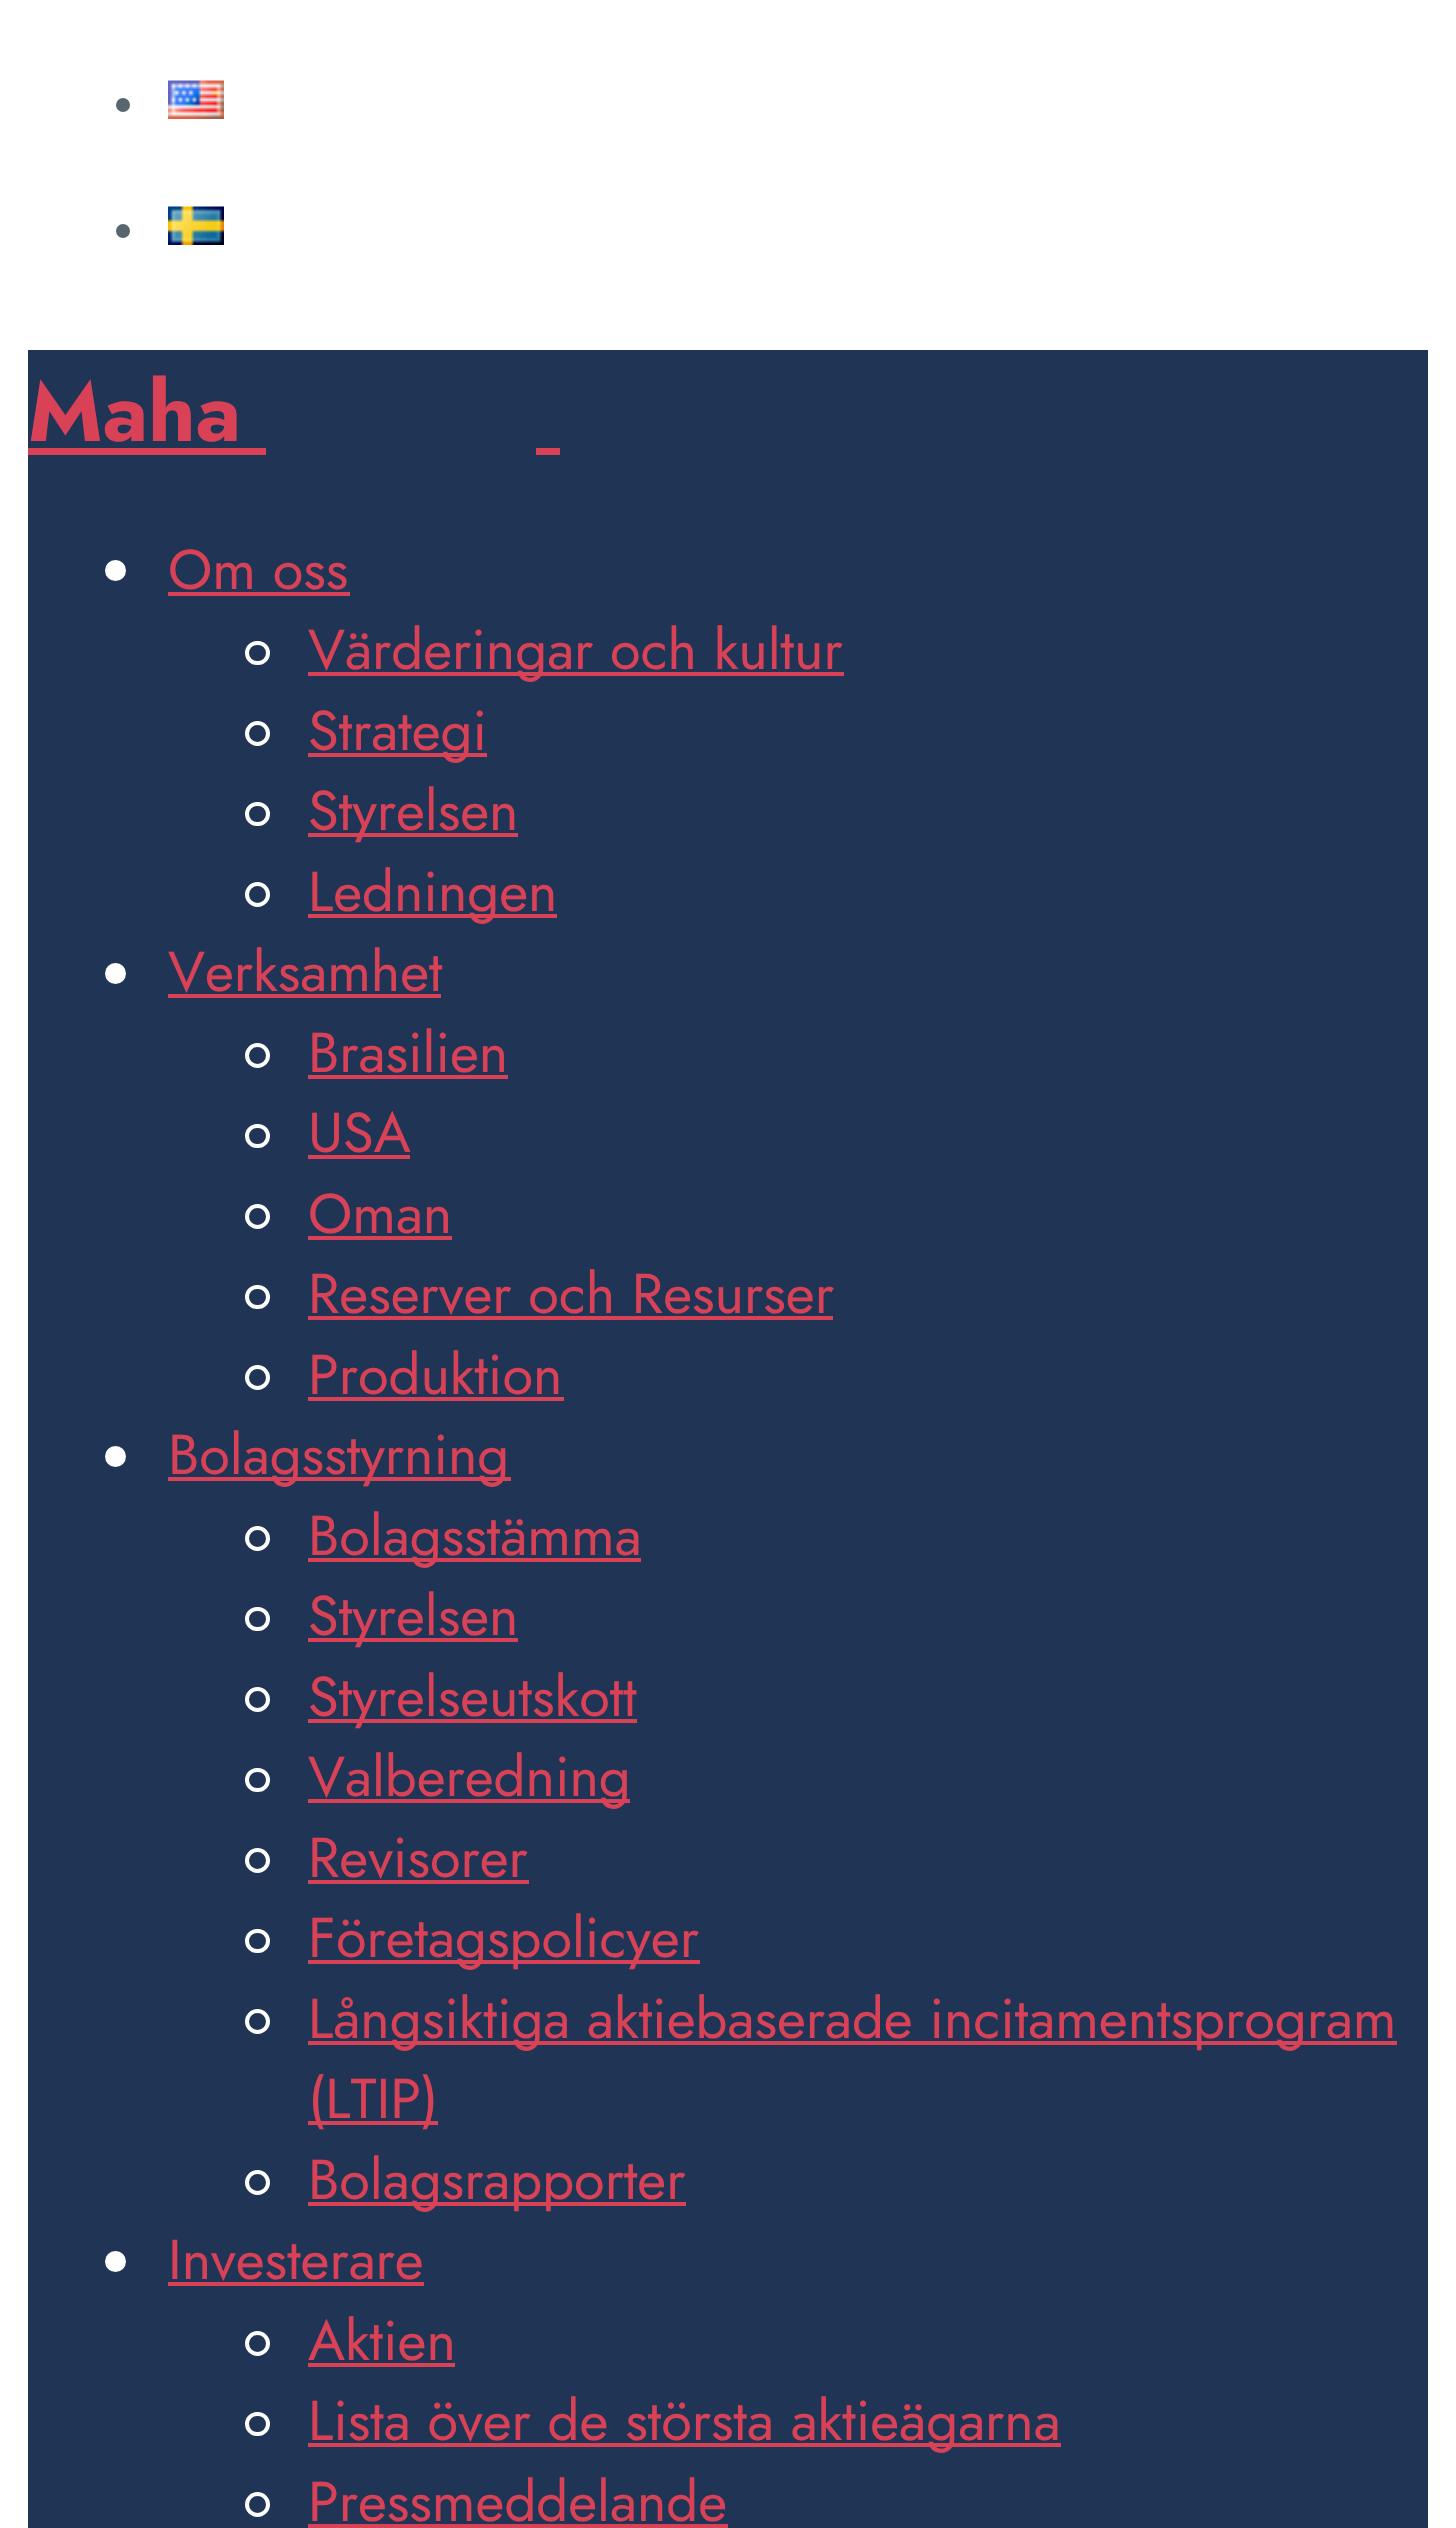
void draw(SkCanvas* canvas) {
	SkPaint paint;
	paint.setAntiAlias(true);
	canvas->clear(0xffffffff);
	paint.setColor(0xff56676d);
	canvas->drawCircle(123, 105, 7, paint);
	canvas->drawImageRect(SkImages::DeferredFromEncodedData(SkData::MakeFromFileName("img1.png")), SkRect::MakeXYWH(168, 80, 56, 39), SkSamplingOptions());
	canvas->drawCircle(123, 231, 7, paint);
	canvas->drawImageRect(SkImages::DeferredFromEncodedData(SkData::MakeFromFileName("img2.png")), SkRect::MakeXYWH(168, 206, 56, 39), SkSamplingOptions());
	paint.setColor(0xff203556);
	canvas->drawRect(SkRect::MakeXYWH(28, 350, 1400, 2178), paint);
	SkFont f1(fontMgr->matchFamilyStyle("Jost", SkFontStyle::Bold()), 84);
	f1.setSubpixel(true);
	paint.setColor(0xffd84156);
	canvas->drawString("Maha", 28, 441, f1, paint);
	canvas->drawRect(SkRect::MakeXYWH(28, 448, 238, 7), paint);
	canvas->drawRect(SkRect::MakeXYWH(536, 448, 24, 7), paint);
	paint.setColor(0xffffffff);
	canvas->drawCircle(115.5, 570.5, 10.5, paint);
	SkFont f2(fontMgr->matchFamilyStyle("Jost", SkFontStyle::Normal()), 56);
	f2.setSubpixel(true);
	paint.setColor(0xffd84156);
	canvas->drawString("Om oss", 168, 589, f2, paint);
	canvas->drawRect(SkRect::MakeXYWH(168, 592, 182, 4), paint);
	paint.setStroke(true);
	paint.setStrokeWidth(4);
	paint.setColor(0xffffffff);
	canvas->drawRoundRect(SkRect::MakeXYWH(247, 643, 21, 20), 10, 10, paint);
	paint.setStroke(false);
	paint.setColor(0xffd84156);
	canvas->drawRect(SkRect::MakeXYWH(308, 672, 536, 4), paint);
	canvas->drawString("Värderingar och kultur", 308, 669, f2, paint);
	paint.setStroke(true);
	paint.setColor(0xffffffff);
	canvas->drawCircle(257.5, 733.5, 10.5, paint);
	paint.setStroke(false);
	paint.setColor(0xffd84156);
	canvas->drawRect(SkRect::MakeXYWH(308, 753, 179, 4), paint);
	canvas->drawString("Strategi", 308, 750, f2, paint);
	paint.setStroke(true);
	paint.setColor(0xffffffff);
	canvas->drawRoundRect(SkRect::MakeXYWH(247, 804, 21, 20), 10, 10, paint);
	paint.setStroke(false);
	paint.setColor(0xffd84156);
	canvas->drawRect(SkRect::MakeXYWH(308, 833, 210, 4), paint);
	canvas->drawString("Styrelsen", 308, 830, f2, paint);
	paint.setStroke(true);
	paint.setColor(0xffffffff);
	canvas->drawCircle(257.5, 894.5, 10.5, paint);
	paint.setStroke(false);
	paint.setColor(0xffd84156);
	canvas->drawRect(SkRect::MakeXYWH(308, 914, 249, 4), paint);
	canvas->drawString("Ledningen", 308, 911, f2, paint);
	paint.setColor(0xffffffff);
	canvas->drawCircle(115.5, 973.5, 10.5, paint);
	paint.setColor(0xffd84156);
	canvas->drawString("Verksamhet", 168, 991, f2, paint);
	canvas->drawRect(SkRect::MakeXYWH(168, 994, 273, 4), paint);
	paint.setStroke(true);
	paint.setColor(0xffffffff);
	canvas->drawCircle(257.5, 1055.5, 10.5, paint);
	paint.setStroke(false);
	paint.setColor(0xffd84156);
	canvas->drawString("Brasilien", 308, 1072, f2, paint);
	canvas->drawRect(SkRect::MakeXYWH(308, 1075, 200, 4), paint);
	paint.setStroke(true);
	paint.setColor(0xffffffff);
	canvas->drawRoundRect(SkRect::MakeXYWH(247, 1126, 21, 20), 10, 10, paint);
	paint.setStroke(false);
	paint.setColor(0xffd84156);
	canvas->drawString("USA", 308, 1152, f2, paint);
	canvas->drawRect(SkRect::MakeXYWH(308, 1155, 102, 4), paint);
	paint.setStroke(true);
	paint.setColor(0xffffffff);
	canvas->drawCircle(257.5, 1216.5, 10.5, paint);
	paint.setStroke(false);
	paint.setColor(0xffd84156);
	canvas->drawString("Oman", 308, 1233, f2, paint);
	canvas->drawRect(SkRect::MakeXYWH(308, 1236, 144, 4), paint);
	paint.setStroke(true);
	paint.setColor(0xffffffff);
	canvas->drawRoundRect(SkRect::MakeXYWH(247, 1287, 21, 20), 10, 10, paint);
	paint.setStroke(false);
	paint.setColor(0xffd84156);
	canvas->drawString("Reserver och Resurser", 308, 1313, f2, paint);
	canvas->drawRect(SkRect::MakeXYWH(308, 1316, 525, 4), paint);
	paint.setStroke(true);
	paint.setColor(0xffffffff);
	canvas->drawCircle(257.5, 1377.5, 10.5, paint);
	paint.setStroke(false);
	paint.setColor(0xffd84156);
	canvas->drawString("Produktion", 308, 1394, f2, paint);
	canvas->drawRect(SkRect::MakeXYWH(308, 1397, 256, 4), paint);
	paint.setColor(0xffffffff);
	canvas->drawCircle(115.5, 1456.5, 10.5, paint);
	paint.setColor(0xffd84156);
	canvas->drawRect(SkRect::MakeXYWH(168, 1477, 343, 4), paint);
	canvas->drawString("Bolagsstyrning", 168, 1474, f2, paint);
	paint.setStroke(true);
	paint.setColor(0xffffffff);
	canvas->drawCircle(257.5, 1538.5, 10.5, paint);
	paint.setStroke(false);
	paint.setColor(0xffd84156);
	canvas->drawRect(SkRect::MakeXYWH(308, 1558, 333, 4), paint);
	canvas->drawString("Bolagsstämma", 308, 1555, f2, paint);
	paint.setStroke(true);
	paint.setColor(0xffffffff);
	canvas->drawRoundRect(SkRect::MakeXYWH(247, 1609, 21, 20), 10, 10, paint);
	paint.setStroke(false);
	paint.setColor(0xffd84156);
	canvas->drawRect(SkRect::MakeXYWH(308, 1638, 210, 4), paint);
	canvas->drawString("Styrelsen", 308, 1635, f2, paint);
	paint.setStroke(true);
	paint.setColor(0xffffffff);
	canvas->drawCircle(257.5, 1699.5, 10.5, paint);
	paint.setStroke(false);
	paint.setColor(0xffd84156);
	canvas->drawRect(SkRect::MakeXYWH(308, 1719, 329, 4), paint);
	canvas->drawString("Styrelseutskott", 308, 1716, f2, paint);
	paint.setStroke(true);
	paint.setColor(0xffffffff);
	canvas->drawRoundRect(SkRect::MakeXYWH(247, 1770, 21, 20), 10, 10, paint);
	paint.setStroke(false);
	paint.setColor(0xffd84156);
	canvas->drawRect(SkRect::MakeXYWH(308, 1799, 322, 4), paint);
	canvas->drawString("Valberedning", 308, 1796, f2, paint);
	paint.setStroke(true);
	paint.setColor(0xffffffff);
	canvas->drawCircle(257.5, 1860.5, 10.5, paint);
	paint.setStroke(false);
	paint.setColor(0xffd84156);
	canvas->drawString("Revisorer", 308, 1877, f2, paint);
	canvas->drawRect(SkRect::MakeXYWH(308, 1880, 221, 4), paint);
	paint.setStroke(true);
	paint.setColor(0xffffffff);
	canvas->drawRoundRect(SkRect::MakeXYWH(247, 1931, 21, 20), 10, 10, paint);
	paint.setStroke(false);
	paint.setColor(0xffd84156);
	canvas->drawRect(SkRect::MakeXYWH(308, 1960, 392, 4), paint);
	canvas->drawString("Företagspolicyer", 308, 1957, f2, paint);
	paint.setStroke(true);
	paint.setColor(0xffffffff);
	canvas->drawCircle(257.5, 2021.5, 10.5, paint);
	paint.setStroke(false);
	paint.setColor(0xffd84156);
	canvas->drawRect(SkRect::MakeXYWH(308, 2041, 1089, 4), paint);
	canvas->drawString("Långsiktiga aktiebaserade incitamentsprogram", 308, 2038, f2, paint);
	canvas->drawRect(SkRect::MakeXYWH(308, 2121, 130, 4), paint);
	canvas->drawString("(LTIP)", 308, 2118, f2, paint);
	paint.setStroke(true);
	paint.setColor(0xffffffff);
	canvas->drawCircle(257.5, 2182.5, 10.5, paint);
	paint.setStroke(false);
	paint.setColor(0xffd84156);
	canvas->drawRect(SkRect::MakeXYWH(308, 2202, 378, 4), paint);
	canvas->drawString("Bolagsrapporter", 308, 2199, f2, paint);
	paint.setColor(0xffffffff);
	canvas->drawCircle(115.5, 2261.5, 10.5, paint);
	paint.setColor(0xffd84156);
	canvas->drawString("Investerare", 168, 2279, f2, paint);
	canvas->drawRect(SkRect::MakeXYWH(168, 2282, 256, 4), paint);
	paint.setStroke(true);
	paint.setColor(0xffffffff);
	canvas->drawCircle(257.5, 2343.5, 10.5, paint);
	paint.setStroke(false);
	paint.setColor(0xffd84156);
	canvas->drawString("Aktien", 308, 2360, f2, paint);
	canvas->drawRect(SkRect::MakeXYWH(308, 2363, 147, 4), paint);
	paint.setStroke(true);
	paint.setColor(0xffffffff);
	canvas->drawRoundRect(SkRect::MakeXYWH(247, 2414, 21, 20), 10, 10, paint);
	paint.setStroke(false);
	paint.setColor(0xffd84156);
	canvas->drawRect(SkRect::MakeXYWH(308, 2443, 753, 4), paint);
	canvas->drawString("Lista över de största aktieägarna", 308, 2440, f2, paint);
	paint.setStroke(true);
	paint.setColor(0xffffffff);
	canvas->drawCircle(257.5, 2504.5, 10.5, paint);
	paint.setStroke(false);
	paint.setColor(0xffd84156);
	canvas->drawString("Pressmeddelande", 308, 2521, f2, paint);
	canvas->drawRect(SkRect::MakeXYWH(308, 2524, 420, 4), paint);
}
